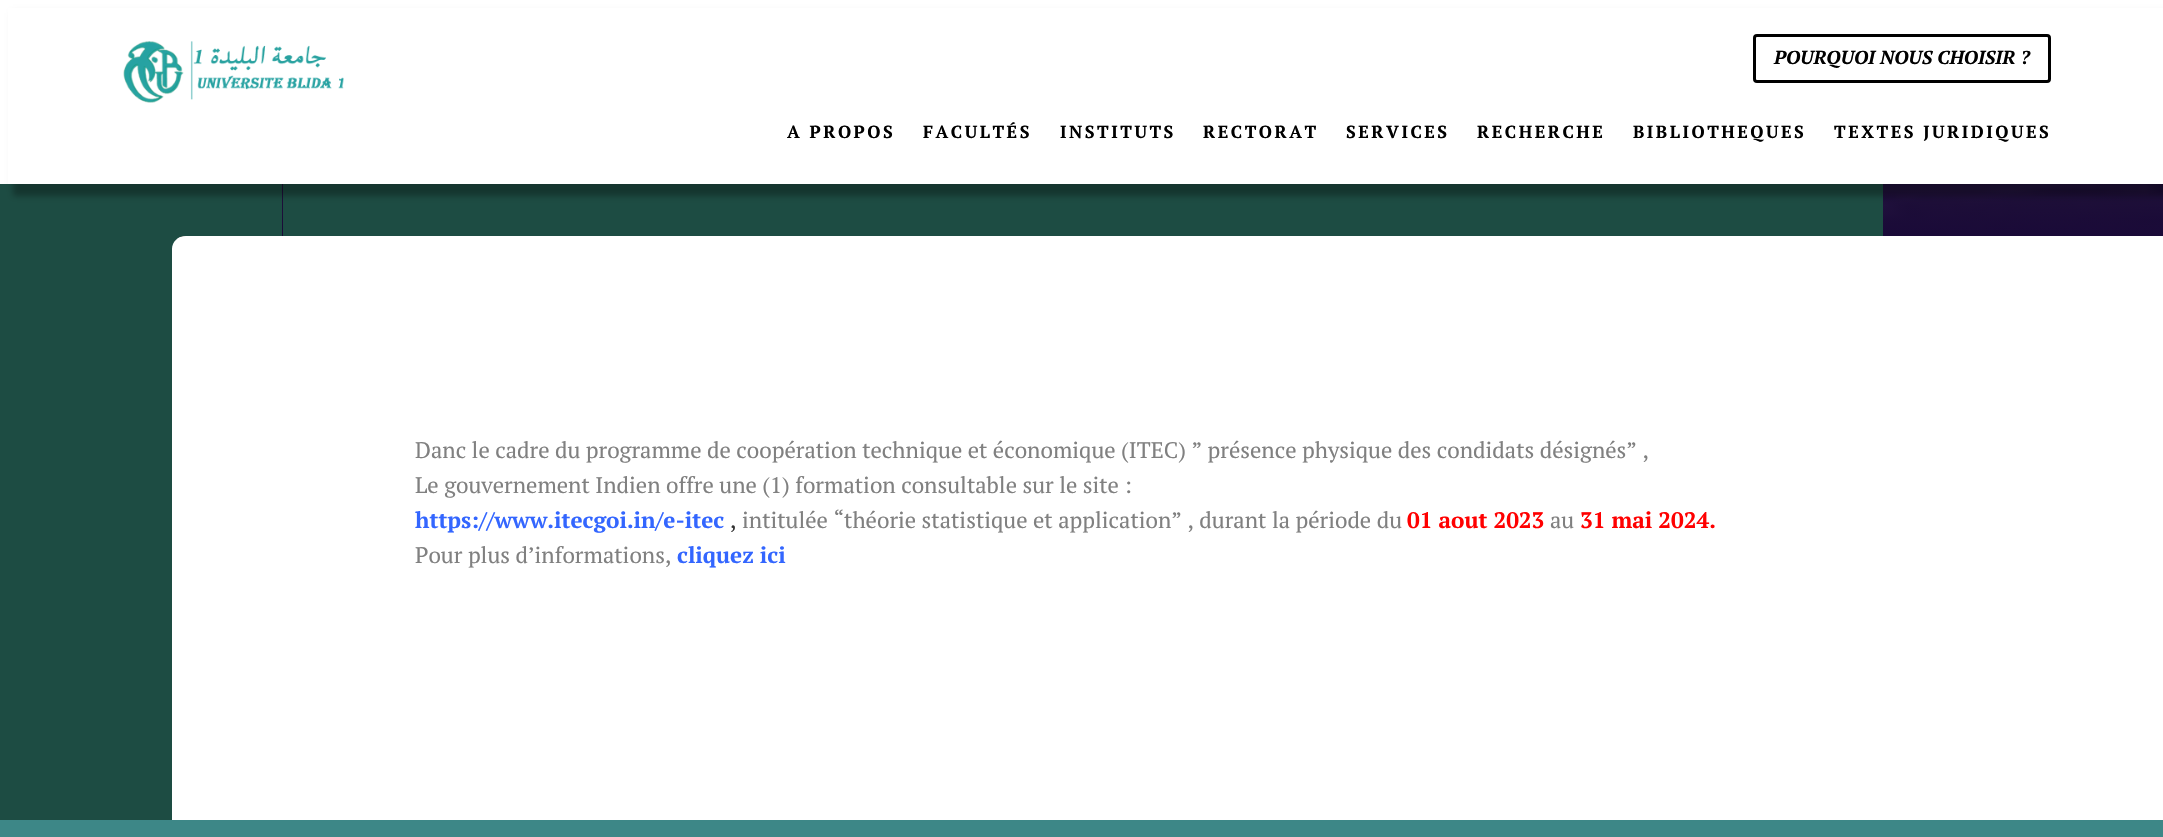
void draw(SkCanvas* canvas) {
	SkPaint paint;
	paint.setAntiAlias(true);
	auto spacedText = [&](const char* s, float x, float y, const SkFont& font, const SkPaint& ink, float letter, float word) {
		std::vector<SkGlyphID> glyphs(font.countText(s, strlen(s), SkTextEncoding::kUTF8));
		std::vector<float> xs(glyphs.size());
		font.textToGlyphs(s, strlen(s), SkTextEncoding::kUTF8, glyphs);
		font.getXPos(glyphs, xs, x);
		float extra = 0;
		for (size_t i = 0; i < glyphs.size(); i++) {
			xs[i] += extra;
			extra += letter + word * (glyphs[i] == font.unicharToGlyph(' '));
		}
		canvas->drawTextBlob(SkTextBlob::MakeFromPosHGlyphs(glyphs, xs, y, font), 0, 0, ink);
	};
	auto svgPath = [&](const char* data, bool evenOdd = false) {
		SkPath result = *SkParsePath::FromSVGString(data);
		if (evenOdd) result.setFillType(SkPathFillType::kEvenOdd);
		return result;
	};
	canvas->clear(0xffffffff);
	canvas->drawImageRect(SkImages::DeferredFromEncodedData(SkData::MakeFromFileName("img2.png")), SkRect::MakeXYWH(180, 184, 1983, 53), SkSamplingOptions());
	paint.setColor(0xff1d4c43);
	canvas->drawRect(SkRect::MakeXYWH(0, 184, 282, 52), paint);
	canvas->drawRect(SkRect::MakeXYWH(283, 184, 1600, 52), paint);
	paint.setColor(0x4d000000);
	paint.setMaskFilter(SkMaskFilter::MakeBlur(kNormal_SkBlurStyle, 3));
	canvas->drawRect(SkRect::MakeXYWH(13, 13, 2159, 183), paint);
	paint.setMaskFilter(nullptr);
	paint.setColor(0xffffffff);
	canvas->drawRect(SkRect::MakeXYWH(8, 8, 2155, 176), paint);
	canvas->drawImageRect(SkImages::DeferredFromEncodedData(SkData::MakeFromFileName("img1.png")), SkRect::MakeXYWH(123, 41, 221, 62), SkSamplingOptions());
	paint.setStroke(true);
	paint.setStrokeWidth(3);
	paint.setColor(0xff000000);
	canvas->drawRoundRect(SkRect::MakeXYWH(1754.5, 35.5, 295, 46), 2.5, 2.5, paint);
	SkFont f1(fontMgr->matchFamilyStyle("PT Serif", SkFontStyle::BoldItalic()), 18.75);
	f1.setSubpixel(true);
	paint.setStroke(false);
	canvas->drawString("POURQUOI NOUS CHOISIR ?", 1774, 64, f1, paint);
	SkFont f2(fontMgr->matchFamilyStyle("PT Serif", SkFontStyle::Bold()), 17.5);
	f2.setSubpixel(true);
	spacedText("A PROPOS", 787, 138, f2, paint, 2.5, 0);
	spacedText("FACULTÉS", 923, 138, f2, paint, 2.5, 0);
	spacedText("INSTITUTS", 1060, 138, f2, paint, 2.5, 0);
	spacedText("RECTORAT", 1203, 138, f2, paint, 2.5, 0);
	spacedText("SERVICES", 1346, 138, f2, paint, 2.5, 0);
	spacedText("RECHERCHE", 1477, 138, f2, paint, 2.5, 0);
	spacedText("BIBLIOTHEQUES", 1633, 138, f2, paint, 2.5, 0);
	spacedText("TEXTES JURIDIQUES", 1834, 138, f2, paint, 2.5, 0);
	paint.setColor(0xff1d4c43);
	canvas->drawPath(svgPath("M-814 236C-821 236-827 242-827 249V820H172V249C172 242 178 236 185 236H1164Z"), paint);
	paint.setColor(0xffffffff);
	canvas->drawPath(svgPath("M186 236H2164V820H173V249C173 242 179 236 186 236Z"), paint);
	SkFont f3(fontMgr->matchFamilyStyle("PT Serif", SkFontStyle::Normal()), 22.5);
	f3.setSubpixel(true);
	paint.setColor(0xff808080);
	canvas->drawString("Danc le cadre du programme de coopération technique et économique (ITEC) ” présence physique des condidats désignés” ,", 415, 458, f3, paint);
	canvas->drawString("Le gouvernement Indien offre une (1) formation consultable sur le site :", 415, 493, f3, paint);
	SkFont f4(fontMgr->matchFamilyStyle("PT Serif", SkFontStyle::Bold()), 22.5);
	f4.setSubpixel(true);
	paint.setColor(0xff3366ff);
	canvas->drawString("https://www.itecgoi.in/e-itec", 415, 528, f4, paint);
	paint.setColor(0xff333333);
	canvas->drawString(",", 730, 528, f3, paint);
	paint.setColor(0xff808080);
	canvas->drawString("intitulée “théorie statistique et application” , durant la période du", 742, 528, f3, paint);
	paint.setColor(0xffff0000);
	canvas->drawString("01 aout 2023", 1407, 528, f4, paint);
	paint.setColor(0xff808080);
	canvas->drawString("au", 1550, 528, f3, paint);
	paint.setColor(0xffff0000);
	canvas->drawString("31 mai 2024.", 1580, 528, f4, paint);
	paint.setColor(0xff808080);
	canvas->drawString("Pour plus d’informations,", 415, 563, f3, paint);
	paint.setColor(0xff3366ff);
	canvas->drawString("cliquez ici", 677, 563, f4, paint);
	paint.setColor(0xff3d8787);
	canvas->drawRect(SkRect::MakeXYWH(0, 820, 2163, 17), paint);
}
